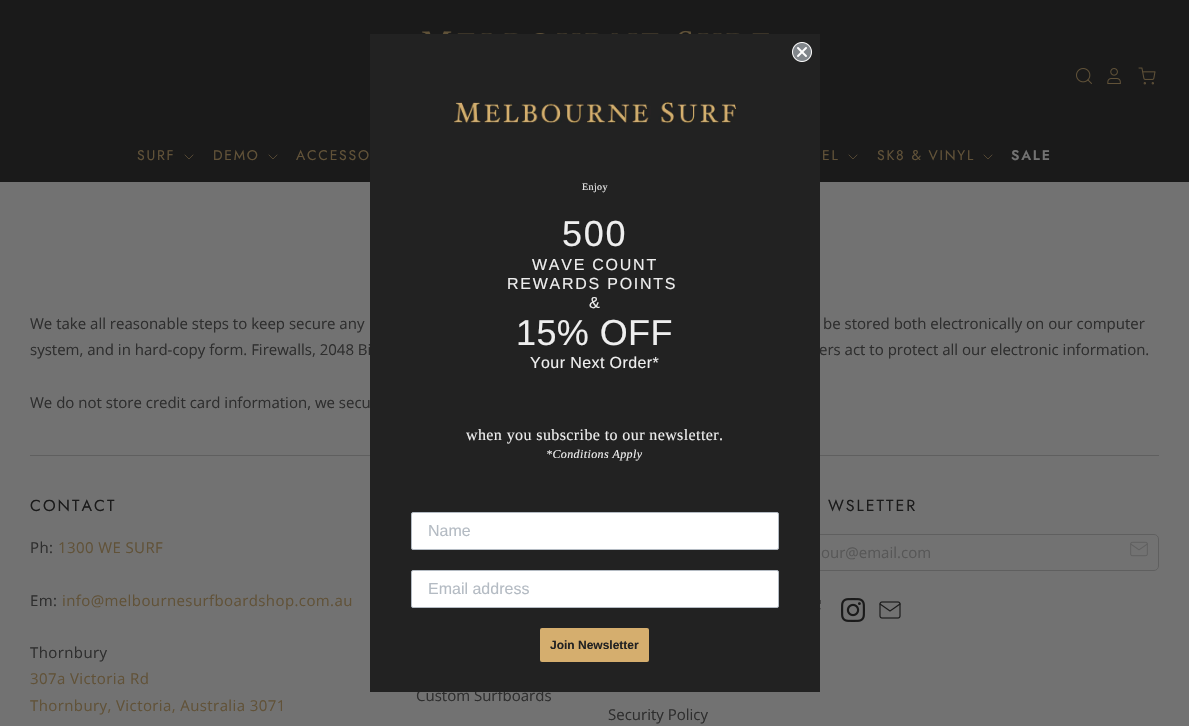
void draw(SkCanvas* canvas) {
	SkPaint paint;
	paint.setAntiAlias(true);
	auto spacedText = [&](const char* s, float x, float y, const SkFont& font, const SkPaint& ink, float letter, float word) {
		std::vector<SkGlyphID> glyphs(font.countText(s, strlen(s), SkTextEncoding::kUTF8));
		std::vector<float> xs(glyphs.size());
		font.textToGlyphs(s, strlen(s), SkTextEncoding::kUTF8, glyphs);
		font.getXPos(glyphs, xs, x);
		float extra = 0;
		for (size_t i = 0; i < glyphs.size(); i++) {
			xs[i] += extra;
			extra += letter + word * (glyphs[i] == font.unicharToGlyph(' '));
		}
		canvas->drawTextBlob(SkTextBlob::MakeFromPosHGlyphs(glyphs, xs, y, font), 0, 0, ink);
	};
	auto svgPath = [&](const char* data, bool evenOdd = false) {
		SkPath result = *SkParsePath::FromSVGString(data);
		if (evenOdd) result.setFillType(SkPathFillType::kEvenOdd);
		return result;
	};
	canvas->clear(0xff727272);
	paint.setColor(0xff1a1a1a);
	canvas->drawRect(SkRect::MakeXYWH(0, 0, 1189, 182), paint);
	canvas->drawImageRect(SkImages::DeferredFromEncodedData(SkData::MakeFromFileName("img1.png")), SkRect::MakeXYWH(422, 30, 347, 4), SkSamplingOptions());
	canvas->drawImageRect(SkImages::DeferredFromEncodedData(SkData::MakeFromFileName("img2.png")), SkRect::MakeXYWH(1076, 68, 16, 16), SkSamplingOptions());
	canvas->drawImageRect(SkImages::DeferredFromEncodedData(SkData::MakeFromFileName("img3.png")), SkRect::MakeXYWH(1107, 68, 14, 16), SkSamplingOptions());
	canvas->drawImageRect(SkImages::DeferredFromEncodedData(SkData::MakeFromFileName("img4.png")), SkRect::MakeXYWH(1138, 67, 18, 18), SkSamplingOptions());
	SkFont f1(fontMgr->matchFamilyStyle("Jost", SkFontStyle::Normal()), 14);
	f1.setSubpixel(true);
	paint.setColor(0xff615238);
	spacedText("SURF", 137, 160, f1, paint, 1.75, 0);
	paint.setStroke(true);
	paint.setStrokeWidth(0.8);
	paint.setStrokeCap(SkPaint::kRound_Cap);
	paint.setStrokeJoin(SkPaint::kRound_Join);
	canvas->drawPath(svgPath("M185 155L189 159L193 155"), paint);
	paint.setStroke(false);
	spacedText("DEMO", 213, 160, f1, paint, 1.75, 0);
	paint.setStroke(true);
	canvas->drawPath(svgPath("M269 155L273 159L277 155"), paint);
	paint.setStroke(false);
	spacedText("ACCESSO", 296, 160, f1, paint, 1.75, 0);
	spacedText("EL", 822, 160, f1, paint, 1.75, 0);
	paint.setStroke(true);
	canvas->drawPath(svgPath("M849 155L853 159L857 155"), paint);
	paint.setStroke(false);
	spacedText("SK8 & VINYL", 877, 160, f1, paint, 1.75, 0);
	paint.setStroke(true);
	canvas->drawPath(svgPath("M984 155L988 159L992 155"), paint);
	SkFont f2(fontMgr->matchFamilyStyle("Jost", SkFontStyle(600, SkFontStyle::kNormal_Width, SkFontStyle::kUpright_Slant)), 14);
	f2.setSubpixel(true);
	paint.setStroke(false);
	paint.setColor(0xff727272);
	spacedText("SALE", 1011, 160, f2, paint, 1.75, 0);
	SkFont f3(fontMgr->matchFamilyStyle("Open Sans", SkFontStyle::Normal()), 15);
	f3.setSubpixel(true);
	paint.setColor(0xff2e2e2e);
	canvas->drawString("system, and in hard-copy form. Firewalls, 2048 Bi", 30, 355, f3, paint);
	canvas->drawString("ers act to protect all our electronic information.", 819, 355, f3, paint);
	paint.setColor(0xff5f5f5f);
	canvas->drawRect(SkRect::MakeXYWH(30, 455, 1129, 1), paint);
	paint.setStroke(true);
	paint.setStrokeWidth(1);
	paint.setStrokeCap(SkPaint::kButt_Cap);
	paint.setStrokeJoin(SkPaint::kMiter_Join);
	canvas->drawRoundRect(SkRect::MakeXYWH(803.5, 534.5, 355, 36), 4.5, 4.5, paint);
	paint.setStroke(false);
	paint.setColor(0xff2e2e2e);
	canvas->drawString("Custom Surfboards", 416, 701, f3, paint);
	paint.setColor(0xff222222);
	canvas->drawRect(SkRect::MakeXYWH(370, 34, 450, 658), paint);
	canvas->drawImageRect(SkImages::DeferredFromEncodedData(SkData::MakeFromFileName("img5.png")), SkRect::MakeXYWH(792, 42, 20, 20), SkSamplingOptions());
	canvas->drawImageRect(SkImages::DeferredFromEncodedData(SkData::MakeFromFileName("img6.png")), SkRect::MakeXYWH(454, 102, 283, 21), SkSamplingOptions());
	SkFont f4(fontMgr->matchFamilyStyle("Liberation Serif", SkFontStyle::Normal()), 10);
	f4.setSubpixel(true);
	paint.setColor(0xffeeeeee);
	spacedText("Enjoy", 582, 190, f4, paint, 0.4, 0);
	SkFont f5(fontMgr->matchFamilyStyle("Liberation Sans", SkFontStyle::Normal()), 36);
	f5.setSubpixel(true);
	spacedText("500", 562, 246, f5, paint, 1.75, 0);
	SkFont f6(fontMgr->matchFamilyStyle("Liberation Sans", SkFontStyle::Normal()), 16);
	f6.setSubpixel(true);
	spacedText("WAVE COUNT", 532, 270, f6, paint, 1.75, 0);
	spacedText("REWARDS POINTS", 507, 289, f6, paint, 1.75, 0);
	spacedText("&", 589, 308, f6, paint, 0.4, 0);
	spacedText("15% OFF", 516, 345, f5, paint, 0.4, 0);
	spacedText("Your Next Order*", 530, 368, f6, paint, 0.4, 0);
	SkFont f7(fontMgr->matchFamilyStyle("Liberation Serif", SkFontStyle::Normal()), 16);
	f7.setSubpixel(true);
	spacedText("when you subscribe to our newsletter.", 466, 440, f7, paint, 0.4, 0);
	SkFont f8(fontMgr->matchFamilyStyle("Liberation Serif", SkFontStyle::Italic()), 12);
	f8.setSubpixel(true);
	spacedText("*Conditions Apply", 546, 458, f8, paint, 0.4, 0);
	paint.setColor(0xffffffff);
	canvas->drawRoundRect(SkRect::MakeXYWH(411.5, 512.5, 367, 37), 1.5, 1.5, paint);
	paint.setStroke(true);
	paint.setColor(0xffb4bbc3);
	canvas->drawRoundRect(SkRect::MakeXYWH(411.5, 512.5, 367, 37), 1.5, 1.5, paint);
	paint.setStroke(false);
	canvas->drawString("Name", 428, 536, f6, paint);
	paint.setColor(0xffffffff);
	canvas->drawRoundRect(SkRect::MakeXYWH(411.5, 570.5, 367, 37), 1.5, 1.5, paint);
	paint.setStroke(true);
	paint.setColor(0xffb4bbc3);
	canvas->drawRoundRect(SkRect::MakeXYWH(411.5, 570.5, 367, 37), 1.5, 1.5, paint);
	paint.setStroke(false);
	canvas->drawString("Email address", 428, 594, f6, paint);
	paint.setColor(0xffd5ae6e);
	canvas->drawRoundRect(SkRect::MakeXYWH(540, 628, 109, 34), 2, 2, paint);
	SkFont f9(fontMgr->matchFamilyStyle("Liberation Sans", SkFontStyle::Bold()), 12);
	f9.setSubpixel(true);
	paint.setColor(0xff222222);
	canvas->drawString("Join Newsletter", 550, 649, f9, paint);
	paint.setColor(0xff2e2e2e);
	canvas->drawString("We take all reasonable steps to keep secure any", 30, 329, f3, paint);
	canvas->drawString("be stored both electronically on our computer", 823, 329, f3, paint);
	canvas->drawString("We do not store credit card information, we secu", 30, 408, f3, paint);
	SkFont f10(fontMgr->matchFamilyStyle("Jost", SkFontStyle::Normal()), 16);
	f10.setSubpixel(true);
	paint.setColor(0xff1a1a1a);
	spacedText("CONTACT", 30, 511, f10, paint, 2, 0);
	paint.setColor(0xff2e2e2e);
	spacedText("Ph:", 30, 553, f3, paint, 0.4, 0);
	paint.setColor(0xff615238);
	spacedText("1300 WE SURF", 58, 553, f3, paint, 0.4, 0);
	paint.setColor(0xff2e2e2e);
	spacedText("Em:", 30, 606, f3, paint, 0.4, 0);
	paint.setColor(0xff615238);
	spacedText("info@melbournesurfboardshop.com.au", 62, 606, f3, paint, 0.4, 0);
	paint.setColor(0xff2e2e2e);
	spacedText("Thornbury", 30, 658, f3, paint, 0.4, 0);
	paint.setColor(0xff615238);
	spacedText("307a Victoria Rd", 30, 684, f3, paint, 0.4, 0);
	spacedText("Thornbury, Victoria, Australia 3071", 30, 711, f3, paint, 0.4, 0);
	paint.setColor(0xff1a1a1a);
	spacedText("WSLETTER", 828, 511, f10, paint, 2, 0);
	paint.setColor(0xff575757);
	canvas->drawString("our@email.com", 821, 558, f3, paint);
	canvas->drawImageRect(SkImages::DeferredFromEncodedData(SkData::MakeFromFileName("img7.png")), SkRect::MakeXYWH(1130, 541, 18, 16), SkSamplingOptions());
	canvas->drawImageRect(SkImages::DeferredFromEncodedData(SkData::MakeFromFileName("img8.png")), SkRect::MakeXYWH(820, 600, 1, 10), SkSamplingOptions());
	canvas->drawImageRect(SkImages::DeferredFromEncodedData(SkData::MakeFromFileName("img9.png")), SkRect::MakeXYWH(841, 598, 24, 24), SkSamplingOptions());
	canvas->drawImageRect(SkImages::DeferredFromEncodedData(SkData::MakeFromFileName("img10.png")), SkRect::MakeXYWH(879, 601, 22, 18), SkSamplingOptions());
	paint.setColor(0xff2e2e2e);
	canvas->drawString("Security Policy", 608, 720, f3, paint);
}
